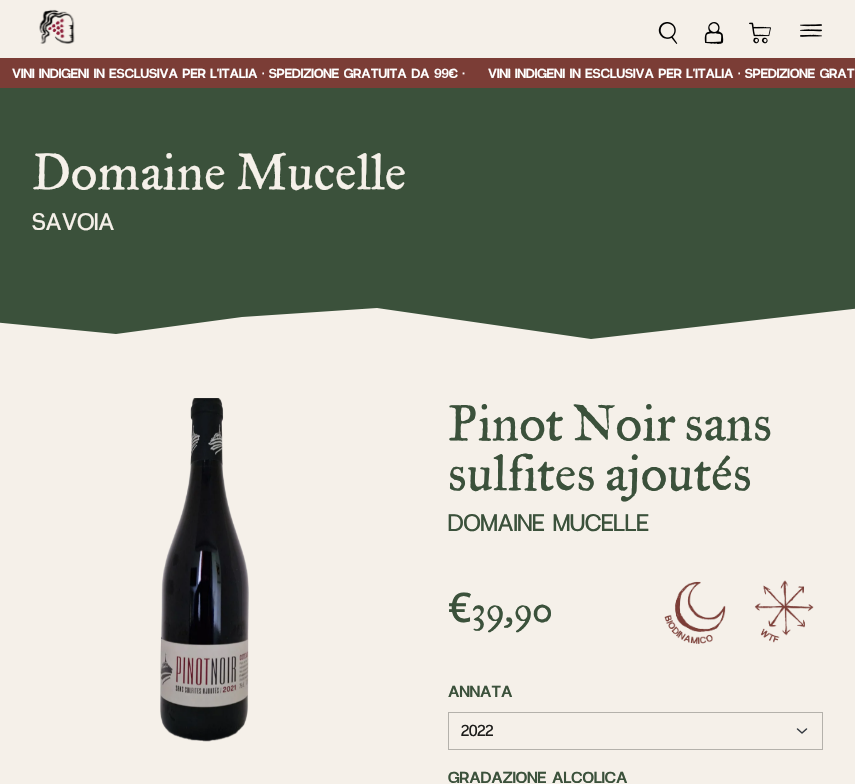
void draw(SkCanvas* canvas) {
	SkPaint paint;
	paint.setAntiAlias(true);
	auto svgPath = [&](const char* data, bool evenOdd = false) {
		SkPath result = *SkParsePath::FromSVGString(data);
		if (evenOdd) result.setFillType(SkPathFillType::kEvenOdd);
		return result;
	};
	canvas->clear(0xfff5f0e9);
	canvas->drawImageRect(SkImages::DeferredFromEncodedData(SkData::MakeFromFileName("img1.png")), SkRect::MakeXYWH(39, 9, 36, 35), SkSamplingOptions());
	canvas->drawImageRect(SkImages::DeferredFromEncodedData(SkData::MakeFromFileName("img2.png")), SkRect::MakeXYWH(658, 22, 20, 22), SkSamplingOptions());
	canvas->drawImageRect(SkImages::DeferredFromEncodedData(SkData::MakeFromFileName("img3.png")), SkRect::MakeXYWH(704, 22, 20, 22), SkSamplingOptions());
	canvas->drawImageRect(SkImages::DeferredFromEncodedData(SkData::MakeFromFileName("img4.png")), SkRect::MakeXYWH(749, 22, 22, 22), SkSamplingOptions());
	canvas->drawImageRect(SkImages::DeferredFromEncodedData(SkData::MakeFromFileName("img5.png")), SkRect::MakeXYWH(800, 24, 22, 13), SkSamplingOptions());
	paint.setColor(0xff7b3d36);
	canvas->drawRect(SkRect::MakeXYWH(0, 58, 855, 30), paint);
	SkFont f1(fontMgr->matchFamilyStyle("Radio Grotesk", SkFontStyle::Bold()), 13.2);
	f1.setSubpixel(true);
	paint.setColor(0xffffffff);
	canvas->drawString("VINI INDIGENI IN ESCLUSIVA PER L'ITALIA · SPEDIZIONE GRATUITA DA 99€ ·", 12, 78, f1, paint);
	canvas->drawString("VINI INDIGENI IN ESCLUSIVA PER L'ITALIA · SPEDIZIONE GRAT", 488, 78, f1, paint);
	paint.setColor(0xff3b513b);
	canvas->drawRect(SkRect::MakeXYWH(0, 88, 855, 211), paint);
	SkFont f2(fontMgr->matchFamilyStyle("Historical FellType", SkFontStyle::Normal()), 55.5);
	f2.setSubpixel(true);
	paint.setColor(0xfff5f0e9);
	canvas->drawString("Domaine Mucelle", 32, 189, f2, paint);
	SkFont f3(fontMgr->matchFamilyStyle("Radio Grotesk", SkFontStyle::Normal()), 24);
	f3.setSubpixel(true);
	canvas->drawString("SAVOIA", 32, 230, f3, paint);
	paint.setColor(0xff3b513b);
	canvas->drawPath(svgPath("M591 339L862 308V299H-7V322L116 334L242 317L377 308Z"), paint);
	canvas->drawImageRect(SkImages::DeferredFromEncodedData(SkData::MakeFromFileName("img6.png")), SkRect::MakeXYWH(160, 398, 89, 344), SkSamplingOptions());
	canvas->drawString("Pinot Noir sans", 448, 440, f2, paint);
	canvas->drawString("sulfites ajoutés", 448, 490, f2, paint);
	canvas->drawString("DOMAINE MUCELLE", 448, 531, f3, paint);
	SkFont f4(fontMgr->matchFamilyStyle("Noto Sans", SkFontStyle(500, SkFontStyle::kNormal_Width, SkFontStyle::kUpright_Slant)), 41);
	f4.setSubpixel(true);
	canvas->drawString("€", 448, 622, f4, paint);
	SkFont f5(fontMgr->matchFamilyStyle("Historical FellType", SkFontStyle::Normal()), 41);
	f5.setSubpixel(true);
	canvas->drawString("39,90", 471, 622, f5, paint);
	canvas->drawImageRect(SkImages::DeferredFromEncodedData(SkData::MakeFromFileName("img7.png")), SkRect::MakeXYWH(664, 581, 62, 63), SkSamplingOptions());
	canvas->drawImageRect(SkImages::DeferredFromEncodedData(SkData::MakeFromFileName("img8.png")), SkRect::MakeXYWH(754, 580, 60, 63), SkSamplingOptions());
	SkFont f6(fontMgr->matchFamilyStyle("Radio Grotesk", SkFontStyle::Bold()), 16);
	f6.setSubpixel(true);
	canvas->drawString("ANNATA", 448, 697, f6, paint);
	paint.setStroke(true);
	paint.setStrokeWidth(1.5);
	paint.setStrokeCap(SkPaint::kRound_Cap);
	paint.setStrokeJoin(SkPaint::kRound_Join);
	paint.setColor(0xff343a40);
	canvas->drawPath(svgPath("M797.5 729L802 733L806.5 729"), paint);
	paint.setStrokeWidth(1);
	paint.setStrokeCap(SkPaint::kButt_Cap);
	paint.setStrokeJoin(SkPaint::kMiter_Join);
	paint.setColor(0xffb4b1ab);
	canvas->drawRect(SkRect::MakeXYWH(448.5, 712.5, 374, 37), paint);
	SkFont f7(fontMgr->matchFamilyStyle("Radio Grotesk", SkFontStyle::Normal()), 16);
	f7.setSubpixel(true);
	paint.setStroke(false);
	paint.setColor(0xff1d1d1b);
	canvas->drawString("2022", 461, 736, f7, paint);
	paint.setColor(0xff3b513b);
	canvas->drawString("GRADAZIONE ALCOLICA", 448, 783, f6, paint);
}
